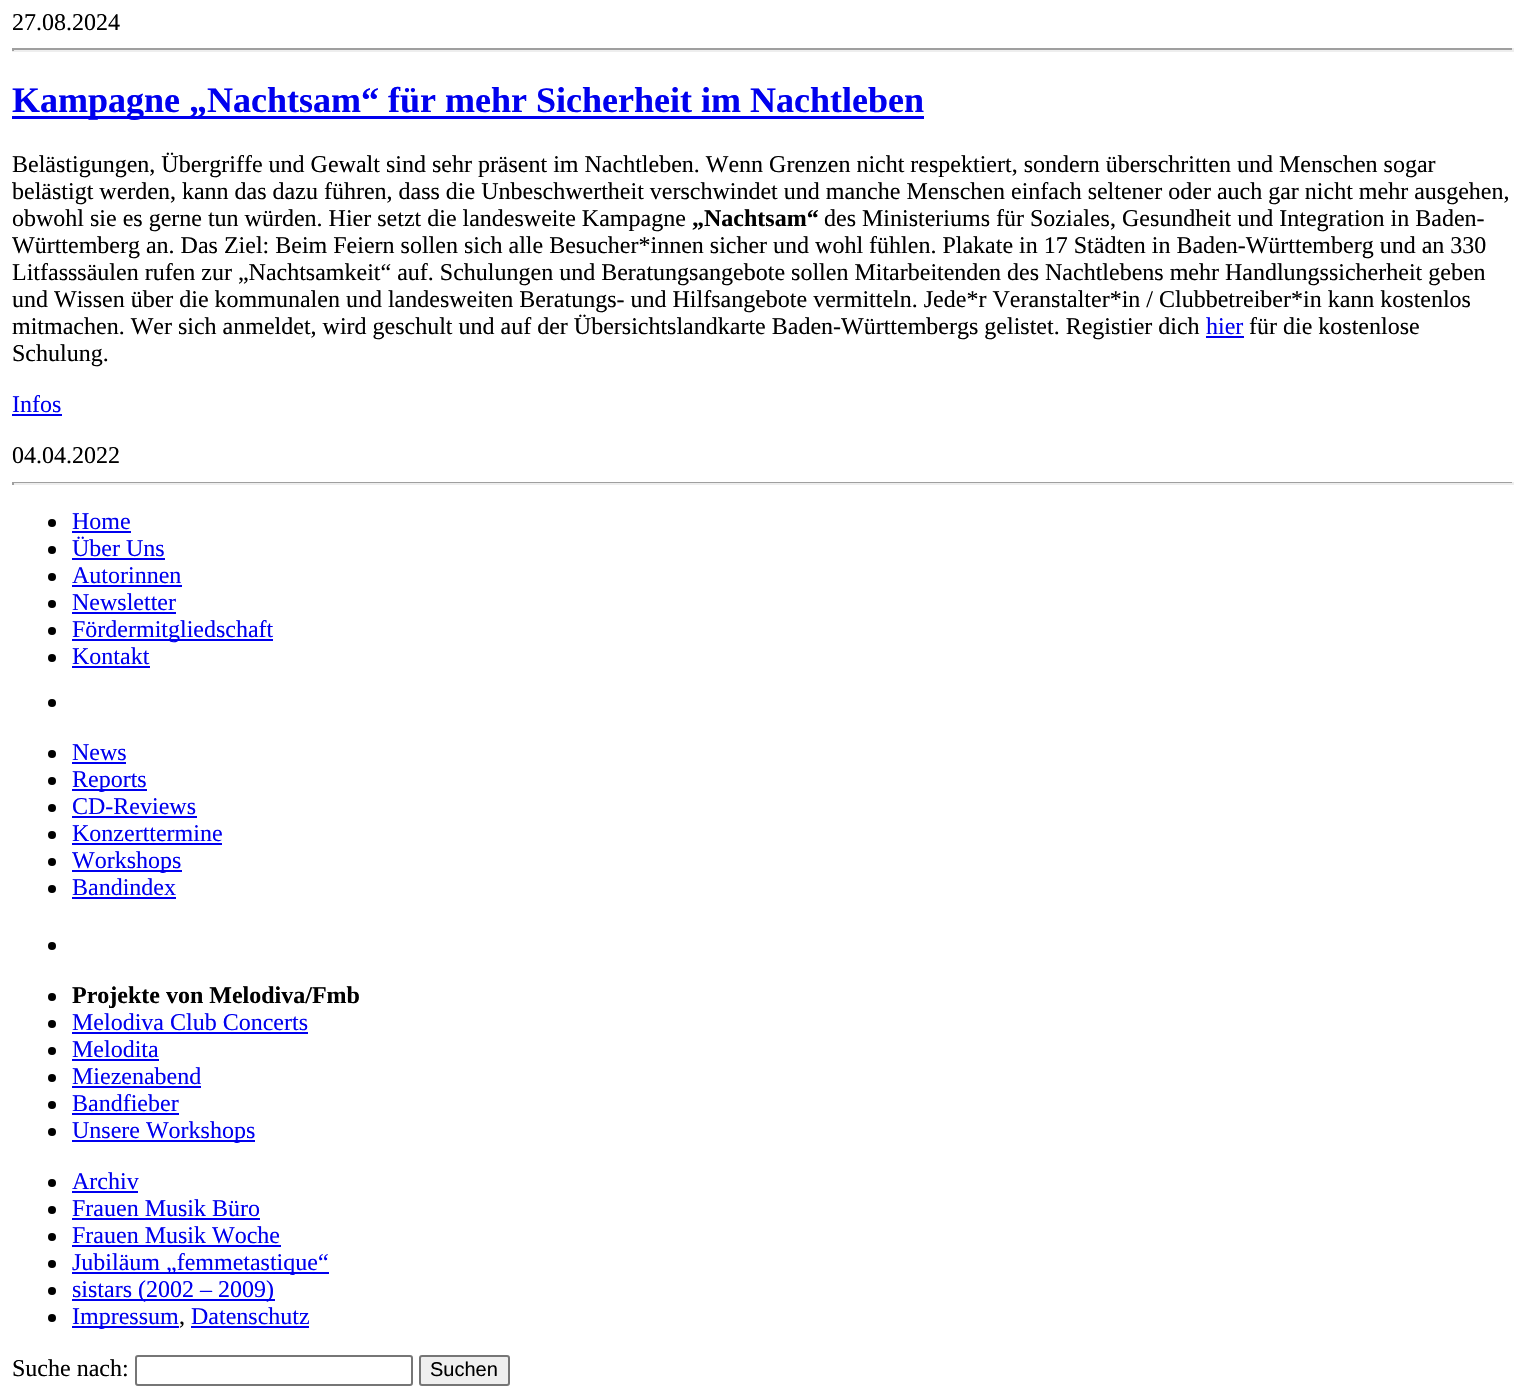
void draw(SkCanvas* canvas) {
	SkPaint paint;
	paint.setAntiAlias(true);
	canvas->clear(0xffffffff);
	SkFont f1(fontMgr->matchFamilyStyle("Liberation Serif", SkFontStyle::Normal()), 24);
	f1.setSubpixel(true);
	paint.setColor(0xff000000);
	canvas->drawString("27.08.2024", 12, 30, f1, paint);
	paint.setColor(0xff9f9f9f);
	canvas->drawRect(SkRect::MakeXYWH(12, 48, 1502, 2), paint);
	paint.setColor(0xffeeeeee);
	canvas->drawRect(SkRect::MakeXYWH(1512, 48, 2, 3), paint);
	canvas->drawRect(SkRect::MakeXYWH(12, 50, 1502, 2), paint);
	paint.setColor(0xff9f9f9f);
	canvas->drawRect(SkRect::MakeXYWH(12, 48, 2, 3), paint);
	paint.setColor(0xff0000ee);
	canvas->drawRect(SkRect::MakeXYWH(12, 116, 912, 3), paint);
	SkFont f2(fontMgr->matchFamilyStyle("Liberation Serif", SkFontStyle::Bold()), 36);
	f2.setSubpixel(true);
	canvas->drawString("Kampagne „Nachtsam“ für mehr Sicherheit im Nachtleben", 12, 112, f2, paint);
	paint.setColor(0xff000000);
	canvas->drawString("Belästigungen, Übergriffe und Gewalt sind sehr präsent im Nachtleben. Wenn Grenzen nicht respektiert, sondern überschritten und Menschen sogar", 12, 172, f1, paint);
	canvas->drawString("belästigt werden, kann das dazu führen, dass die Unbeschwertheit verschwindet und manche Menschen einfach seltener oder auch gar nicht mehr ausgehen,", 12, 199, f1, paint);
	canvas->drawString("obwohl sie es gerne tun würden. Hier setzt die landesweite Kampagne", 12, 226, f1, paint);
	SkFont f3(fontMgr->matchFamilyStyle("Liberation Serif", SkFontStyle::Bold()), 24);
	f3.setSubpixel(true);
	canvas->drawString("„Nachtsam“", 692, 226, f3, paint);
	canvas->drawString("des Ministeriums für Soziales, Gesundheit und Integration in Baden-", 824, 226, f1, paint);
	canvas->drawString("Württemberg an. Das Ziel: Beim Feiern sollen sich alle Besucher*innen sicher und wohl fühlen. Plakate in 17 Städten in Baden-Württemberg und an 330", 12, 253, f1, paint);
	canvas->drawString("Litfasssäulen rufen zur „Nachtsamkeit“ auf. Schulungen und Beratungsangebote sollen Mitarbeitenden des Nachtlebens mehr Handlungssicherheit geben", 12, 280, f1, paint);
	canvas->drawString("und Wissen über die kommunalen und landesweiten Beratungs- und Hilfsangebote vermitteln. Jede*r Veranstalter*in / Clubbetreiber*in kann kostenlos", 12, 307, f1, paint);
	canvas->drawString("mitmachen. Wer sich anmeldet, wird geschult und auf der Übersichtslandkarte Baden-Württembergs gelistet. Registier dich", 12, 334, f1, paint);
	paint.setColor(0xff0000ee);
	canvas->drawString("hier", 1206, 334, f1, paint);
	canvas->drawRect(SkRect::MakeXYWH(1206, 336, 38, 2), paint);
	paint.setColor(0xff000000);
	canvas->drawString("für die kostenlose", 1249, 334, f1, paint);
	canvas->drawString("Schulung.", 12, 361, f1, paint);
	paint.setColor(0xff0000ee);
	canvas->drawString("Infos", 12, 412, f1, paint);
	canvas->drawRect(SkRect::MakeXYWH(12, 414, 50, 2), paint);
	paint.setColor(0xff000000);
	canvas->drawString("04.04.2022", 12, 463, f1, paint);
	paint.setColor(0xff9f9f9f);
	canvas->drawRect(SkRect::MakeXYWH(12, 482, 1502, 1), paint);
	paint.setColor(0xffeeeeee);
	canvas->drawRect(SkRect::MakeXYWH(1512, 482, 2, 3), paint);
	canvas->drawRect(SkRect::MakeXYWH(12, 483, 1502, 2), paint);
	paint.setColor(0xff9f9f9f);
	canvas->drawRect(SkRect::MakeXYWH(12, 482, 2, 3), paint);
	paint.setColor(0xff000000);
	canvas->drawCircle(52, 523, 4, paint);
	paint.setColor(0xff0000ee);
	canvas->drawString("Home", 72, 529, f1, paint);
	canvas->drawRect(SkRect::MakeXYWH(72, 531, 59, 2), paint);
	paint.setColor(0xff000000);
	canvas->drawCircle(52, 550, 4, paint);
	paint.setColor(0xff0000ee);
	canvas->drawString("Über Uns", 72, 556, f1, paint);
	canvas->drawRect(SkRect::MakeXYWH(72, 558, 93, 2), paint);
	paint.setColor(0xff000000);
	canvas->drawCircle(52, 577, 4, paint);
	paint.setColor(0xff0000ee);
	canvas->drawString("Autorinnen", 72, 583, f1, paint);
	canvas->drawRect(SkRect::MakeXYWH(72, 585, 110, 2), paint);
	paint.setColor(0xff000000);
	canvas->drawCircle(52, 604, 4, paint);
	paint.setColor(0xff0000ee);
	canvas->drawString("Newsletter", 72, 610, f1, paint);
	canvas->drawRect(SkRect::MakeXYWH(72, 612, 104, 2), paint);
	paint.setColor(0xff000000);
	canvas->drawCircle(52, 631, 4, paint);
	paint.setColor(0xff0000ee);
	canvas->drawRect(SkRect::MakeXYWH(72, 639, 201, 2), paint);
	canvas->drawString("Fördermitgliedschaft", 72, 637, f1, paint);
	paint.setColor(0xff000000);
	canvas->drawCircle(52, 658, 4, paint);
	paint.setColor(0xff0000ee);
	canvas->drawString("Kontakt", 72, 664, f1, paint);
	canvas->drawRect(SkRect::MakeXYWH(72, 666, 78, 2), paint);
	paint.setColor(0xff000000);
	canvas->drawCircle(52, 703, 4, paint);
	canvas->drawCircle(52, 754, 4, paint);
	paint.setColor(0xff0000ee);
	canvas->drawString("News", 72, 760, f1, paint);
	canvas->drawRect(SkRect::MakeXYWH(72, 762, 54, 2), paint);
	paint.setColor(0xff000000);
	canvas->drawCircle(52, 781, 4, paint);
	paint.setColor(0xff0000ee);
	canvas->drawRect(SkRect::MakeXYWH(72, 789, 75, 2), paint);
	canvas->drawString("Reports", 72, 787, f1, paint);
	paint.setColor(0xff000000);
	canvas->drawCircle(52, 808, 4, paint);
	paint.setColor(0xff0000ee);
	canvas->drawString("CD-Reviews", 72, 814, f1, paint);
	canvas->drawRect(SkRect::MakeXYWH(72, 816, 125, 2), paint);
	paint.setColor(0xff000000);
	canvas->drawCircle(52, 835, 4, paint);
	paint.setColor(0xff0000ee);
	canvas->drawString("Konzerttermine", 72, 841, f1, paint);
	canvas->drawRect(SkRect::MakeXYWH(72, 843, 150, 2), paint);
	paint.setColor(0xff000000);
	canvas->drawCircle(52, 862, 4, paint);
	paint.setColor(0xff0000ee);
	canvas->drawRect(SkRect::MakeXYWH(72, 870, 110, 2), paint);
	canvas->drawString("Workshops", 72, 868, f1, paint);
	paint.setColor(0xff000000);
	canvas->drawCircle(52, 889, 4, paint);
	paint.setColor(0xff0000ee);
	canvas->drawString("Bandindex", 72, 895, f1, paint);
	canvas->drawRect(SkRect::MakeXYWH(72, 897, 104, 2), paint);
	paint.setColor(0xff000000);
	canvas->drawCircle(52, 946, 4, paint);
	canvas->drawCircle(52, 997, 4, paint);
	canvas->drawString("Projekte von Melodiva/Fmb", 72, 1003, f3, paint);
	canvas->drawCircle(52, 1024, 4, paint);
	paint.setColor(0xff0000ee);
	canvas->drawString("Melodiva Club Concerts", 72, 1030, f1, paint);
	canvas->drawRect(SkRect::MakeXYWH(72, 1032, 236, 2), paint);
	paint.setColor(0xff000000);
	canvas->drawCircle(52, 1051, 4, paint);
	paint.setColor(0xff0000ee);
	canvas->drawString("Melodita", 72, 1057, f1, paint);
	canvas->drawRect(SkRect::MakeXYWH(72, 1059, 87, 2), paint);
	paint.setColor(0xff000000);
	canvas->drawCircle(52, 1078, 4, paint);
	paint.setColor(0xff0000ee);
	canvas->drawString("Miezenabend", 72, 1084, f1, paint);
	canvas->drawRect(SkRect::MakeXYWH(72, 1086, 129, 2), paint);
	paint.setColor(0xff000000);
	canvas->drawCircle(52, 1105, 4, paint);
	paint.setColor(0xff0000ee);
	canvas->drawString("Bandfieber", 72, 1111, f1, paint);
	canvas->drawRect(SkRect::MakeXYWH(72, 1113, 107, 2), paint);
	paint.setColor(0xff000000);
	canvas->drawCircle(52, 1132, 4, paint);
	paint.setColor(0xff0000ee);
	canvas->drawRect(SkRect::MakeXYWH(72, 1140, 183, 2), paint);
	canvas->drawString("Unsere Workshops", 72, 1138, f1, paint);
	paint.setColor(0xff000000);
	canvas->drawCircle(52, 1183, 4, paint);
	paint.setColor(0xff0000ee);
	canvas->drawString("Archiv", 72, 1189, f1, paint);
	canvas->drawRect(SkRect::MakeXYWH(72, 1191, 66, 2), paint);
	paint.setColor(0xff000000);
	canvas->drawCircle(52, 1210, 4, paint);
	paint.setColor(0xff0000ee);
	canvas->drawString("Frauen Musik Büro", 72, 1216, f1, paint);
	canvas->drawRect(SkRect::MakeXYWH(72, 1218, 188, 2), paint);
	paint.setColor(0xff000000);
	canvas->drawCircle(52, 1237, 4, paint);
	paint.setColor(0xff0000ee);
	canvas->drawString("Frauen Musik Woche", 72, 1243, f1, paint);
	canvas->drawRect(SkRect::MakeXYWH(72, 1245, 209, 2), paint);
	paint.setColor(0xff000000);
	canvas->drawCircle(52, 1264, 4, paint);
	paint.setColor(0xff0000ee);
	canvas->drawRect(SkRect::MakeXYWH(72, 1272, 257, 2), paint);
	canvas->drawString("Jubiläum „femmetastique“", 72, 1270, f1, paint);
	paint.setColor(0xff000000);
	canvas->drawCircle(52, 1291, 4, paint);
	paint.setColor(0xff0000ee);
	canvas->drawRect(SkRect::MakeXYWH(72, 1299, 203, 2), paint);
	canvas->drawString("sistars (2002 – 2009)", 72, 1297, f1, paint);
	paint.setColor(0xff000000);
	canvas->drawCircle(52, 1318, 4, paint);
	paint.setColor(0xff0000ee);
	canvas->drawRect(SkRect::MakeXYWH(72, 1326, 107, 2), paint);
	canvas->drawString("Impressum", 72, 1324, f1, paint);
	canvas->drawString("Datenschutz", 191, 1324, f1, paint);
	canvas->drawRect(SkRect::MakeXYWH(191, 1326, 118, 2), paint);
	paint.setColor(0xff000000);
	canvas->drawString(",", 179, 1324, f1, paint);
	canvas->drawString("Suche nach:", 12, 1376, f1, paint);
	paint.setStroke(true);
	paint.setStrokeWidth(2);
	paint.setColor(0xff767676);
	canvas->drawRoundRect(SkRect::MakeXYWH(136, 1356, 276, 29), 2, 2, paint);
	paint.setStroke(false);
	paint.setColor(0xffefefef);
	canvas->drawRoundRect(SkRect::MakeXYWH(420, 1356, 89, 29), 2, 2, paint);
	paint.setStroke(true);
	paint.setColor(0xff767676);
	canvas->drawRoundRect(SkRect::MakeXYWH(420, 1356, 89, 29), 2, 2, paint);
	SkFont f4(fontMgr->matchFamilyStyle("Liberation Sans", SkFontStyle::Normal()), 20);
	f4.setSubpixel(true);
	paint.setStroke(false);
	paint.setColor(0xff000000);
	canvas->drawString("Suchen", 430, 1376, f4, paint);
}
